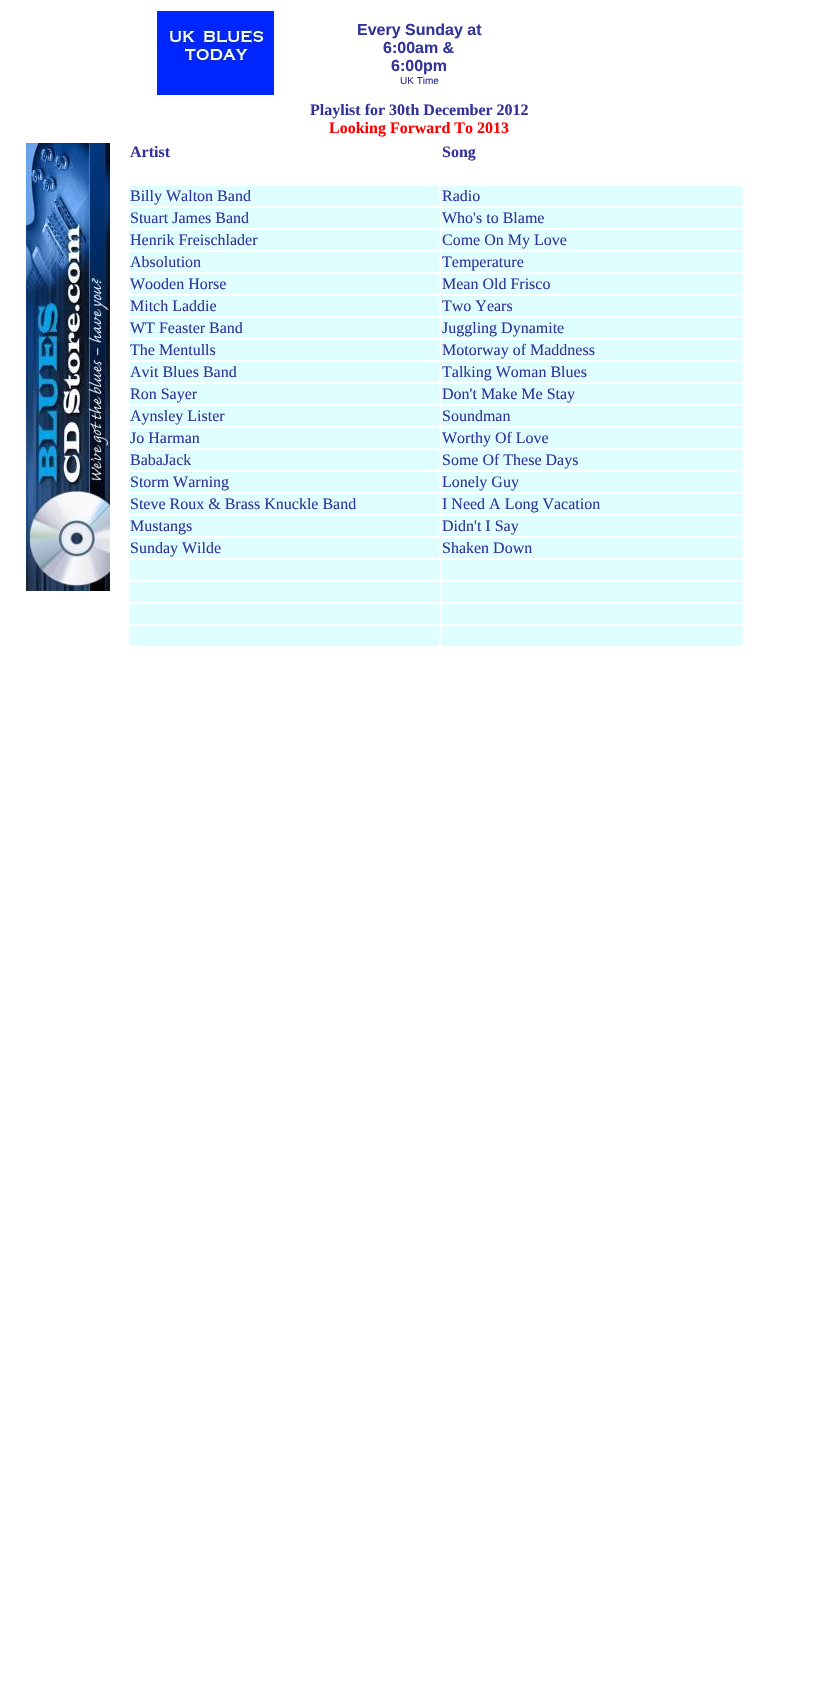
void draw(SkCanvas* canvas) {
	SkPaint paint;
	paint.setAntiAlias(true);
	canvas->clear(0xffffffff);
	canvas->drawImageRect(SkImages::DeferredFromEncodedData(SkData::MakeFromFileName("img1.png")), SkRect::MakeXYWH(157, 11, 117, 84), SkSamplingOptions());
	SkFont f1(fontMgr->matchFamilyStyle("Liberation Sans", SkFontStyle::Bold()), 16);
	f1.setSubpixel(true);
	paint.setColor(0xff333399);
	canvas->drawString("Every Sunday at", 357, 35, f1, paint);
	canvas->drawString("6:00am &", 383, 53, f1, paint);
	canvas->drawString("6:00pm", 391, 71, f1, paint);
	SkFont f2(fontMgr->matchFamilyStyle("Liberation Sans", SkFontStyle::Normal()), 10);
	f2.setSubpixel(true);
	canvas->drawString("UK Time", 400, 84, f2, paint);
	SkFont f3(fontMgr->matchFamilyStyle("Liberation Serif", SkFontStyle::Bold()), 16);
	f3.setSubpixel(true);
	canvas->drawString("Playlist for 30th December 2012", 310, 115, f3, paint);
	paint.setColor(0xffff0000);
	canvas->drawString("Looking Forward To 2013", 329, 133, f3, paint);
	canvas->drawImageRect(SkImages::DeferredFromEncodedData(SkData::MakeFromFileName("img2.png")), SkRect::MakeXYWH(26, 143, 84, 448), SkSamplingOptions());
	paint.setColor(0xff333399);
	canvas->drawString("Artist", 130, 157, f3, paint);
	canvas->drawString("Song", 442, 157, f3, paint);
	paint.setColor(0xffdffeff);
	canvas->drawRect(SkRect::MakeXYWH(129, 186, 310, 20), paint);
	SkFont f4(fontMgr->matchFamilyStyle("Liberation Serif", SkFontStyle::Normal()), 16);
	f4.setSubpixel(true);
	paint.setColor(0xff333399);
	canvas->drawString("Billy Walton Band", 130, 201, f4, paint);
	paint.setColor(0xffdffeff);
	canvas->drawRect(SkRect::MakeXYWH(441, 186, 302, 20), paint);
	paint.setColor(0xff333399);
	canvas->drawString("Radio", 442, 201, f4, paint);
	paint.setColor(0xffdffeff);
	canvas->drawRect(SkRect::MakeXYWH(129, 208, 310, 20), paint);
	paint.setColor(0xff333399);
	canvas->drawString("Stuart James Band", 130, 223, f4, paint);
	paint.setColor(0xffdffeff);
	canvas->drawRect(SkRect::MakeXYWH(441, 208, 302, 20), paint);
	paint.setColor(0xff333399);
	canvas->drawString("Who's to Blame", 442, 223, f4, paint);
	paint.setColor(0xffdffeff);
	canvas->drawRect(SkRect::MakeXYWH(129, 230, 310, 20), paint);
	paint.setColor(0xff333399);
	canvas->drawString("Henrik Freischlader", 130, 245, f4, paint);
	paint.setColor(0xffdffeff);
	canvas->drawRect(SkRect::MakeXYWH(441, 230, 302, 20), paint);
	paint.setColor(0xff333399);
	canvas->drawString("Come On My Love", 442, 245, f4, paint);
	paint.setColor(0xffdffeff);
	canvas->drawRect(SkRect::MakeXYWH(129, 252, 310, 20), paint);
	paint.setColor(0xff333399);
	canvas->drawString("Absolution", 130, 267, f4, paint);
	paint.setColor(0xffdffeff);
	canvas->drawRect(SkRect::MakeXYWH(441, 252, 302, 20), paint);
	paint.setColor(0xff333399);
	canvas->drawString("Temperature", 442, 267, f4, paint);
	paint.setColor(0xffdffeff);
	canvas->drawRect(SkRect::MakeXYWH(129, 274, 310, 20), paint);
	paint.setColor(0xff333399);
	canvas->drawString("Wooden Horse", 130, 289, f4, paint);
	paint.setColor(0xffdffeff);
	canvas->drawRect(SkRect::MakeXYWH(441, 274, 302, 20), paint);
	paint.setColor(0xff333399);
	canvas->drawString("Mean Old Frisco", 442, 289, f4, paint);
	paint.setColor(0xffdffeff);
	canvas->drawRect(SkRect::MakeXYWH(129, 296, 310, 20), paint);
	paint.setColor(0xff333399);
	canvas->drawString("Mitch Laddie", 130, 311, f4, paint);
	paint.setColor(0xffdffeff);
	canvas->drawRect(SkRect::MakeXYWH(441, 296, 302, 20), paint);
	paint.setColor(0xff333399);
	canvas->drawString("Two Years", 442, 311, f4, paint);
	paint.setColor(0xffdffeff);
	canvas->drawRect(SkRect::MakeXYWH(129, 318, 310, 20), paint);
	paint.setColor(0xff333399);
	canvas->drawString("WT Feaster Band", 130, 333, f4, paint);
	paint.setColor(0xffdffeff);
	canvas->drawRect(SkRect::MakeXYWH(441, 318, 302, 20), paint);
	paint.setColor(0xff333399);
	canvas->drawString("Juggling Dynamite", 442, 333, f4, paint);
	paint.setColor(0xffdffeff);
	canvas->drawRect(SkRect::MakeXYWH(129, 340, 310, 20), paint);
	paint.setColor(0xff333399);
	canvas->drawString("The Mentulls", 130, 355, f4, paint);
	paint.setColor(0xffdffeff);
	canvas->drawRect(SkRect::MakeXYWH(441, 340, 302, 20), paint);
	paint.setColor(0xff333399);
	canvas->drawString("Motorway of Maddness", 442, 355, f4, paint);
	paint.setColor(0xffdffeff);
	canvas->drawRect(SkRect::MakeXYWH(129, 362, 310, 20), paint);
	paint.setColor(0xff333399);
	canvas->drawString("Avit Blues Band", 130, 377, f4, paint);
	paint.setColor(0xffdffeff);
	canvas->drawRect(SkRect::MakeXYWH(441, 362, 302, 20), paint);
	paint.setColor(0xff333399);
	canvas->drawString("Talking Woman Blues", 442, 377, f4, paint);
	paint.setColor(0xffdffeff);
	canvas->drawRect(SkRect::MakeXYWH(129, 384, 310, 20), paint);
	paint.setColor(0xff333399);
	canvas->drawString("Ron Sayer", 130, 399, f4, paint);
	paint.setColor(0xffdffeff);
	canvas->drawRect(SkRect::MakeXYWH(441, 384, 302, 20), paint);
	paint.setColor(0xff333399);
	canvas->drawString("Don't Make Me Stay", 442, 399, f4, paint);
	paint.setColor(0xffdffeff);
	canvas->drawRect(SkRect::MakeXYWH(129, 406, 310, 20), paint);
	paint.setColor(0xff333399);
	canvas->drawString("Aynsley Lister", 130, 421, f4, paint);
	paint.setColor(0xffdffeff);
	canvas->drawRect(SkRect::MakeXYWH(441, 406, 302, 20), paint);
	paint.setColor(0xff333399);
	canvas->drawString("Soundman", 442, 421, f4, paint);
	paint.setColor(0xffdffeff);
	canvas->drawRect(SkRect::MakeXYWH(129, 428, 310, 20), paint);
	paint.setColor(0xff333399);
	canvas->drawString("Jo Harman", 130, 443, f4, paint);
	paint.setColor(0xffdffeff);
	canvas->drawRect(SkRect::MakeXYWH(441, 428, 302, 20), paint);
	paint.setColor(0xff333399);
	canvas->drawString("Worthy Of Love", 442, 443, f4, paint);
	paint.setColor(0xffdffeff);
	canvas->drawRect(SkRect::MakeXYWH(129, 450, 310, 20), paint);
	paint.setColor(0xff333399);
	canvas->drawString("BabaJack", 130, 465, f4, paint);
	paint.setColor(0xffdffeff);
	canvas->drawRect(SkRect::MakeXYWH(441, 450, 302, 20), paint);
	paint.setColor(0xff333399);
	canvas->drawString("Some Of These Days", 442, 465, f4, paint);
	paint.setColor(0xffdffeff);
	canvas->drawRect(SkRect::MakeXYWH(129, 472, 310, 20), paint);
	paint.setColor(0xff333399);
	canvas->drawString("Storm Warning", 130, 487, f4, paint);
	paint.setColor(0xffdffeff);
	canvas->drawRect(SkRect::MakeXYWH(441, 472, 302, 20), paint);
	paint.setColor(0xff333399);
	canvas->drawString("Lonely Guy", 442, 487, f4, paint);
	paint.setColor(0xffdffeff);
	canvas->drawRect(SkRect::MakeXYWH(129, 494, 310, 20), paint);
	paint.setColor(0xff333399);
	canvas->drawString("Steve Roux & Brass Knuckle Band", 130, 509, f4, paint);
	paint.setColor(0xffdffeff);
	canvas->drawRect(SkRect::MakeXYWH(441, 494, 302, 20), paint);
	paint.setColor(0xff333399);
	canvas->drawString("I Need A Long Vacation", 442, 509, f4, paint);
	paint.setColor(0xffdffeff);
	canvas->drawRect(SkRect::MakeXYWH(129, 516, 310, 20), paint);
	paint.setColor(0xff333399);
	canvas->drawString("Mustangs", 130, 531, f4, paint);
	paint.setColor(0xffdffeff);
	canvas->drawRect(SkRect::MakeXYWH(441, 516, 302, 20), paint);
	paint.setColor(0xff333399);
	canvas->drawString("Didn't I Say", 442, 531, f4, paint);
	paint.setColor(0xffdffeff);
	canvas->drawRect(SkRect::MakeXYWH(129, 538, 310, 20), paint);
	paint.setColor(0xff333399);
	canvas->drawString("Sunday Wilde", 130, 553, f4, paint);
	paint.setColor(0xffdffeff);
	canvas->drawRect(SkRect::MakeXYWH(441, 538, 302, 20), paint);
	paint.setColor(0xff333399);
	canvas->drawString("Shaken Down", 442, 553, f4, paint);
	paint.setColor(0xffdffeff);
	canvas->drawRect(SkRect::MakeXYWH(129, 560, 310, 20), paint);
	canvas->drawRect(SkRect::MakeXYWH(441, 560, 302, 20), paint);
	canvas->drawRect(SkRect::MakeXYWH(129, 582, 310, 20), paint);
	canvas->drawRect(SkRect::MakeXYWH(441, 582, 302, 20), paint);
	canvas->drawRect(SkRect::MakeXYWH(129, 604, 310, 20), paint);
	canvas->drawRect(SkRect::MakeXYWH(441, 604, 302, 20), paint);
	canvas->drawRect(SkRect::MakeXYWH(129, 626, 310, 20), paint);
	canvas->drawRect(SkRect::MakeXYWH(441, 626, 302, 20), paint);
}
